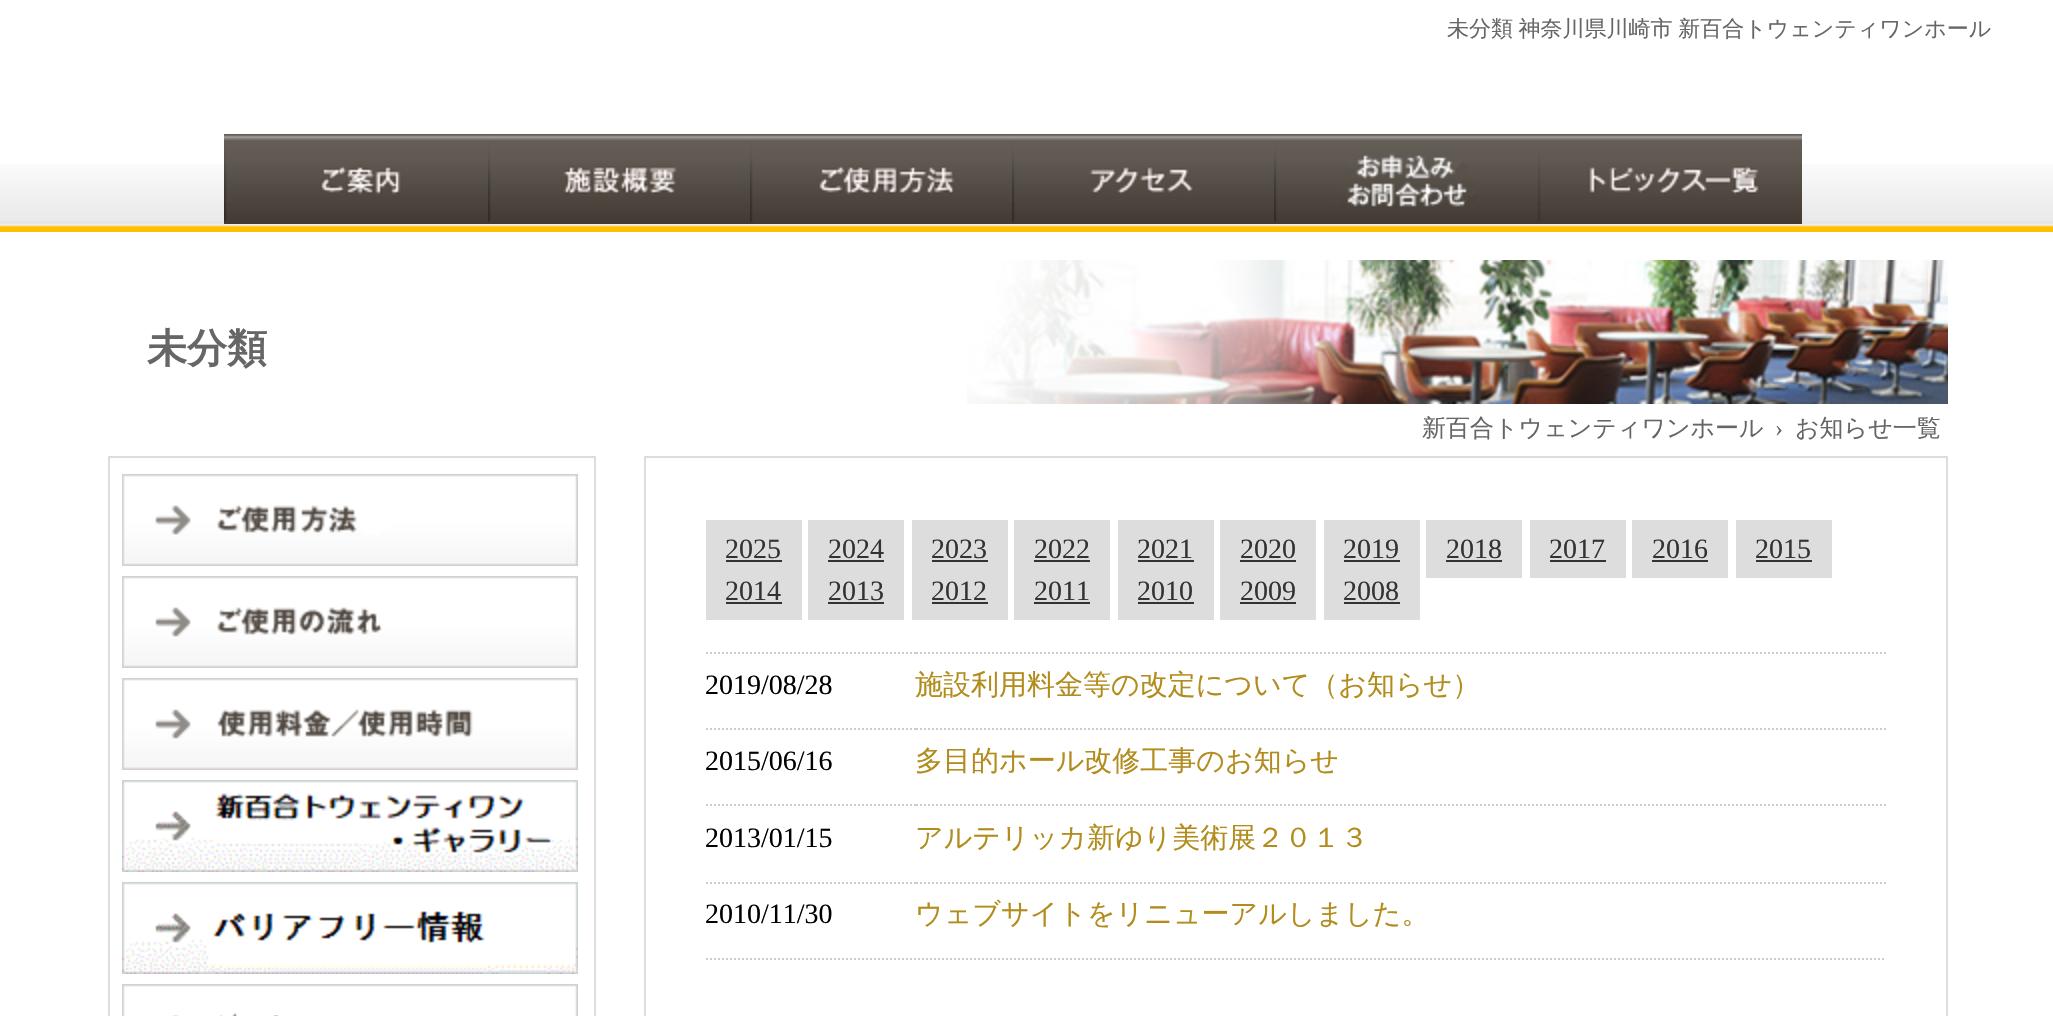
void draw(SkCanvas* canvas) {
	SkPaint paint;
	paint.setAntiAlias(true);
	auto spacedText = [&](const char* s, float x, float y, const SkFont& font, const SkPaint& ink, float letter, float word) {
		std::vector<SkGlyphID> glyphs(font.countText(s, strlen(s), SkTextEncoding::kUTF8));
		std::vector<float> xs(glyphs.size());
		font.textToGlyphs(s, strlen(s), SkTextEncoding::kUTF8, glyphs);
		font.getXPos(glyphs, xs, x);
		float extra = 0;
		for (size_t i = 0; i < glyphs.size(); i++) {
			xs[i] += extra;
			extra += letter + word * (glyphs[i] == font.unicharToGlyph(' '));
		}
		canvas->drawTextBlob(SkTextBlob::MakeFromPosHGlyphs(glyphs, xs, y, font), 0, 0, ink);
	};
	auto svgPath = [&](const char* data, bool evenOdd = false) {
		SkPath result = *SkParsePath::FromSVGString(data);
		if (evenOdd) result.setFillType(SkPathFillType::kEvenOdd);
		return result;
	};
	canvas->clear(0xffffffff);
	SkFont f1(fontMgr->matchFamilyStyle("WenQuanYi Zen Hei", SkFontStyle(500, SkFontStyle::kNormal_Width, SkFontStyle::kUpright_Slant)), 22);
	f1.setSubpixel(true);
	paint.setColor(0xff666666);
	spacedText("未分類 神奈川県川崎市 新百合トウェンティワンホール", 1447, 36, f1, paint, 0, -1);
	canvas->drawImageRect(SkImages::DeferredFromEncodedData(SkData::MakeFromFileName("img1.png")), SkRect::MakeXYWH(967, 260, 981, 144), SkSamplingOptions());
	SkFont f2(fontMgr->matchFamilyStyle("WenQuanYi Zen Hei", SkFontStyle::Bold()), 40);
	f2.setSubpixel(true);
	canvas->drawString("未分類", 147, 362, f2, paint);
	SkFont f3(fontMgr->matchFamilyStyle("WenQuanYi Zen Hei", SkFontStyle(500, SkFontStyle::kNormal_Width, SkFontStyle::kUpright_Slant)), 24);
	f3.setSubpixel(true);
	canvas->drawString("新百合トウェンティワンホール", 1422, 436, f3, paint);
	SkFont f4(fontMgr->matchFamilyStyle("Liberation Serif", SkFontStyle::Normal()), 24);
	f4.setSubpixel(true);
	canvas->drawString("›", 1775, 436, f4, paint);
	canvas->drawString("お知らせ一覧", 1795, 436, f3, paint);
	paint.setStroke(true);
	paint.setStrokeWidth(2);
	paint.setColor(0xffdddddd);
	canvas->drawRect(SkRect::MakeXYWH(109, 457, 486, 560), paint);
	canvas->drawImageRect(SkImages::DeferredFromEncodedData(SkData::MakeFromFileName("img2.png")), SkRect::MakeXYWH(122, 474, 456, 92), SkSamplingOptions());
	canvas->drawImageRect(SkImages::DeferredFromEncodedData(SkData::MakeFromFileName("img3.png")), SkRect::MakeXYWH(122, 576, 456, 92), SkSamplingOptions());
	canvas->drawImageRect(SkImages::DeferredFromEncodedData(SkData::MakeFromFileName("img4.png")), SkRect::MakeXYWH(122, 678, 456, 92), SkSamplingOptions());
	canvas->drawImageRect(SkImages::DeferredFromEncodedData(SkData::MakeFromFileName("img5.png")), SkRect::MakeXYWH(122, 780, 456, 92), SkSamplingOptions());
	canvas->drawImageRect(SkImages::DeferredFromEncodedData(SkData::MakeFromFileName("img6.png")), SkRect::MakeXYWH(122, 882, 456, 92), SkSamplingOptions());
	canvas->drawImageRect(SkImages::DeferredFromEncodedData(SkData::MakeFromFileName("img7.png")), SkRect::MakeXYWH(122, 984, 456, 32), SkSamplingOptions());
	canvas->drawRect(SkRect::MakeXYWH(645, 457, 1302, 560), paint);
	paint.setStroke(false);
	canvas->drawRect(SkRect::MakeXYWH(706, 520, 96, 100), paint);
	SkFont f5(fontMgr->matchFamilyStyle("Liberation Serif", SkFontStyle::Normal()), 28);
	f5.setSubpixel(true);
	paint.setColor(0xff333333);
	canvas->drawString("2025", 725, 558, f5, paint);
	canvas->drawRect(SkRect::MakeXYWH(726, 560, 56, 2), paint);
	paint.setColor(0xffdddddd);
	canvas->drawRect(SkRect::MakeXYWH(808, 520, 96, 100), paint);
	paint.setColor(0xff333333);
	canvas->drawString("2024", 828, 558, f5, paint);
	canvas->drawRect(SkRect::MakeXYWH(828, 560, 56, 2), paint);
	paint.setColor(0xffdddddd);
	canvas->drawRect(SkRect::MakeXYWH(912, 520, 96, 100), paint);
	paint.setColor(0xff333333);
	canvas->drawString("2023", 931, 558, f5, paint);
	canvas->drawRect(SkRect::MakeXYWH(932, 560, 56, 2), paint);
	paint.setColor(0xffdddddd);
	canvas->drawRect(SkRect::MakeXYWH(1014, 520, 96, 100), paint);
	paint.setColor(0xff333333);
	canvas->drawString("2022", 1034, 558, f5, paint);
	canvas->drawRect(SkRect::MakeXYWH(1034, 560, 56, 2), paint);
	paint.setColor(0xffdddddd);
	canvas->drawRect(SkRect::MakeXYWH(1118, 520, 96, 100), paint);
	paint.setColor(0xff333333);
	canvas->drawString("2021", 1137, 558, f5, paint);
	canvas->drawRect(SkRect::MakeXYWH(1138, 560, 56, 2), paint);
	paint.setColor(0xffdddddd);
	canvas->drawRect(SkRect::MakeXYWH(1220, 520, 96, 100), paint);
	paint.setColor(0xff333333);
	canvas->drawString("2020", 1240, 558, f5, paint);
	canvas->drawRect(SkRect::MakeXYWH(1240, 560, 56, 2), paint);
	paint.setColor(0xffdddddd);
	canvas->drawRect(SkRect::MakeXYWH(1324, 520, 96, 100), paint);
	paint.setColor(0xff333333);
	canvas->drawString("2019", 1343, 558, f5, paint);
	canvas->drawRect(SkRect::MakeXYWH(1344, 560, 56, 2), paint);
	paint.setColor(0xffdddddd);
	canvas->drawRect(SkRect::MakeXYWH(1426, 520, 96, 58), paint);
	paint.setColor(0xff333333);
	canvas->drawString("2018", 1446, 558, f5, paint);
	canvas->drawRect(SkRect::MakeXYWH(1446, 560, 56, 2), paint);
	paint.setColor(0xffdddddd);
	canvas->drawRect(SkRect::MakeXYWH(1530, 520, 96, 58), paint);
	paint.setColor(0xff333333);
	canvas->drawString("2017", 1549, 558, f5, paint);
	canvas->drawRect(SkRect::MakeXYWH(1550, 560, 56, 2), paint);
	paint.setColor(0xffdddddd);
	canvas->drawRect(SkRect::MakeXYWH(1632, 520, 96, 58), paint);
	paint.setColor(0xff333333);
	canvas->drawString("2016", 1652, 558, f5, paint);
	canvas->drawRect(SkRect::MakeXYWH(1652, 560, 56, 2), paint);
	paint.setColor(0xffdddddd);
	canvas->drawRect(SkRect::MakeXYWH(1736, 520, 96, 58), paint);
	paint.setColor(0xff333333);
	canvas->drawString("2015", 1755, 558, f5, paint);
	canvas->drawRect(SkRect::MakeXYWH(1756, 560, 56, 2), paint);
	canvas->drawString("2014", 725, 600, f5, paint);
	canvas->drawRect(SkRect::MakeXYWH(726, 602, 56, 2), paint);
	canvas->drawString("2013", 828, 600, f5, paint);
	canvas->drawRect(SkRect::MakeXYWH(828, 602, 56, 2), paint);
	canvas->drawString("2012", 931, 600, f5, paint);
	canvas->drawRect(SkRect::MakeXYWH(932, 602, 56, 2), paint);
	canvas->drawString("2011", 1034, 600, f5, paint);
	canvas->drawRect(SkRect::MakeXYWH(1034, 602, 56, 2), paint);
	canvas->drawString("2010", 1137, 600, f5, paint);
	canvas->drawRect(SkRect::MakeXYWH(1138, 602, 56, 2), paint);
	canvas->drawString("2009", 1240, 600, f5, paint);
	canvas->drawRect(SkRect::MakeXYWH(1240, 602, 56, 2), paint);
	canvas->drawString("2008", 1343, 600, f5, paint);
	canvas->drawRect(SkRect::MakeXYWH(1344, 602, 56, 2), paint);
	paint.setStroke(true);
	paint.setColor(0xffcccccc);
	paint.setPathEffect(SkDashPathEffect::Make({{2, 2}}, 0));
	canvas->drawPath(svgPath("M706 959H1886"), paint);
	paint.setPathEffect(nullptr);
	paint.setPathEffect(SkDashPathEffect::Make({{2, 2}}, 0));
	canvas->drawPath(svgPath("M706 653H916"), paint);
	paint.setPathEffect(nullptr);
	paint.setStroke(false);
	paint.setColor(0xff000000);
	canvas->drawString("2019/08/28", 705, 694, f5, paint);
	paint.setStroke(true);
	paint.setColor(0xffcccccc);
	paint.setPathEffect(SkDashPathEffect::Make({{2, 2}}, 0));
	canvas->drawPath(svgPath("M916 653H1886"), paint);
	paint.setPathEffect(nullptr);
	SkFont f6(fontMgr->matchFamilyStyle("WenQuanYi Zen Hei", SkFontStyle(500, SkFontStyle::kNormal_Width, SkFontStyle::kUpright_Slant)), 28);
	f6.setSubpixel(true);
	paint.setStroke(false);
	paint.setColor(0xffb28c1d);
	canvas->drawString("施設利用料金等の改定について（お知らせ）", 915, 694, f6, paint);
	paint.setStroke(true);
	paint.setColor(0xffcccccc);
	paint.setPathEffect(SkDashPathEffect::Make({{2, 2}}, 0));
	canvas->drawPath(svgPath("M706 729H916"), paint);
	paint.setPathEffect(nullptr);
	paint.setStroke(false);
	paint.setColor(0xff000000);
	canvas->drawString("2015/06/16", 705, 770, f5, paint);
	paint.setStroke(true);
	paint.setColor(0xffcccccc);
	paint.setPathEffect(SkDashPathEffect::Make({{2, 2}}, 0));
	canvas->drawPath(svgPath("M916 729H1886"), paint);
	paint.setPathEffect(nullptr);
	paint.setStroke(false);
	paint.setColor(0xffb28c1d);
	canvas->drawString("多目的ホール改修工事のお知らせ", 915, 770, f6, paint);
	paint.setStroke(true);
	paint.setColor(0xffcccccc);
	paint.setPathEffect(SkDashPathEffect::Make({{2, 2}}, 0));
	canvas->drawPath(svgPath("M706 805H916"), paint);
	paint.setPathEffect(nullptr);
	paint.setStroke(false);
	paint.setColor(0xff000000);
	canvas->drawString("2013/01/15", 705, 847, f5, paint);
	paint.setStroke(true);
	paint.setColor(0xffcccccc);
	paint.setPathEffect(SkDashPathEffect::Make({{2, 2}}, 0));
	canvas->drawPath(svgPath("M916 805H1886"), paint);
	paint.setPathEffect(nullptr);
	paint.setStroke(false);
	paint.setColor(0xffb28c1d);
	canvas->drawString("アルテリッカ新ゆり美術展２０１３", 915, 847, f6, paint);
	paint.setStroke(true);
	paint.setColor(0xffcccccc);
	paint.setPathEffect(SkDashPathEffect::Make({{2, 2}}, 0));
	canvas->drawPath(svgPath("M706 883H916"), paint);
	paint.setPathEffect(nullptr);
	paint.setStroke(false);
	paint.setColor(0xff000000);
	canvas->drawString("2010/11/30", 705, 923, f5, paint);
	paint.setStroke(true);
	paint.setColor(0xffcccccc);
	paint.setPathEffect(SkDashPathEffect::Make({{2, 2}}, 0));
	canvas->drawPath(svgPath("M916 883H1886"), paint);
	paint.setPathEffect(nullptr);
	paint.setStroke(false);
	paint.setColor(0xffb28c1d);
	canvas->drawString("ウェブサイトをリニューアルしました。", 915, 923, f6, paint);
	canvas->drawImageRect(SkImages::DeferredFromEncodedData(SkData::MakeFromFileName("img8.png")), SkRect::MakeXYWH(0, 164, 2053, 68), SkSamplingOptions());
	canvas->drawImageRect(SkImages::DeferredFromEncodedData(SkData::MakeFromFileName("img9.png")), SkRect::MakeXYWH(224, 134, 264, 90), SkSamplingOptions());
	canvas->drawImageRect(SkImages::DeferredFromEncodedData(SkData::MakeFromFileName("img10.png")), SkRect::MakeXYWH(488, 134, 262, 90), SkSamplingOptions());
	canvas->drawImageRect(SkImages::DeferredFromEncodedData(SkData::MakeFromFileName("img11.png")), SkRect::MakeXYWH(750, 134, 262, 90), SkSamplingOptions());
	canvas->drawImageRect(SkImages::DeferredFromEncodedData(SkData::MakeFromFileName("img12.png")), SkRect::MakeXYWH(1012, 134, 262, 90), SkSamplingOptions());
	canvas->drawImageRect(SkImages::DeferredFromEncodedData(SkData::MakeFromFileName("img13.png")), SkRect::MakeXYWH(1274, 134, 264, 90), SkSamplingOptions());
	canvas->drawImageRect(SkImages::DeferredFromEncodedData(SkData::MakeFromFileName("img14.png")), SkRect::MakeXYWH(1538, 134, 264, 90), SkSamplingOptions());
}
